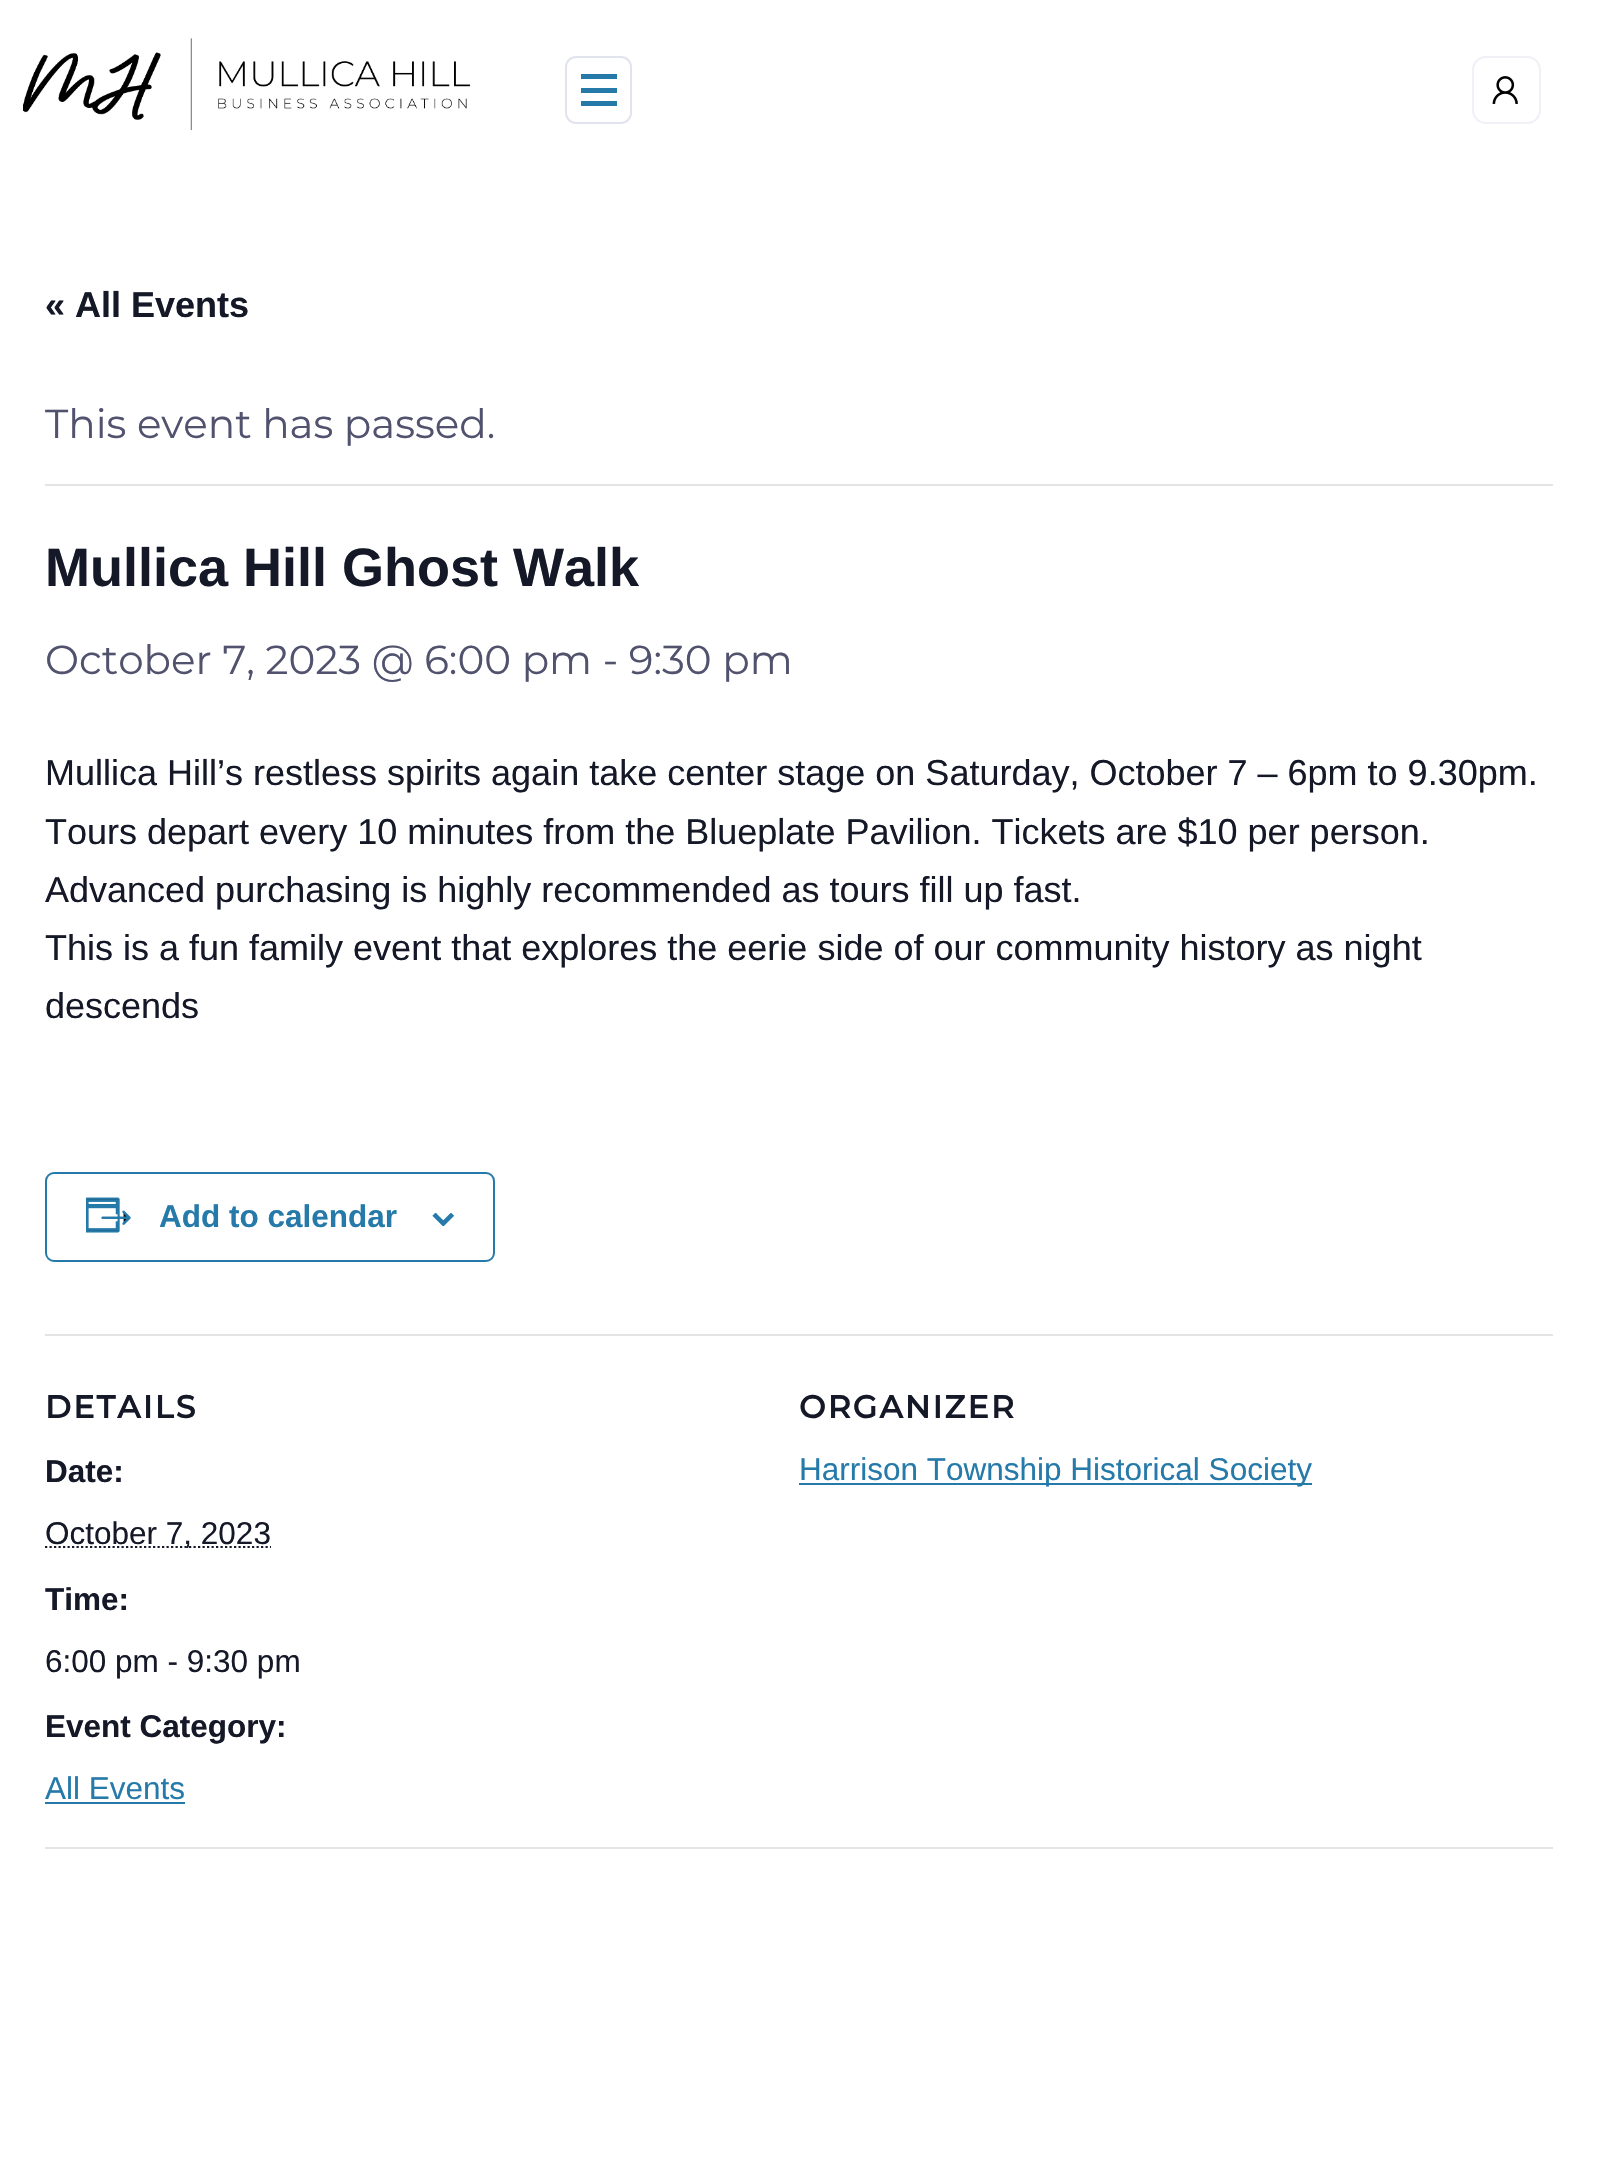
void draw(SkCanvas* canvas) {
	SkPaint paint;
	paint.setAntiAlias(true);
	auto spacedText = [&](const char* s, float x, float y, const SkFont& font, const SkPaint& ink, float letter, float word) {
		std::vector<SkGlyphID> glyphs(font.countText(s, strlen(s), SkTextEncoding::kUTF8));
		std::vector<float> xs(glyphs.size());
		font.textToGlyphs(s, strlen(s), SkTextEncoding::kUTF8, glyphs);
		font.getXPos(glyphs, xs, x);
		float extra = 0;
		for (size_t i = 0; i < glyphs.size(); i++) {
			xs[i] += extra;
			extra += letter + word * (glyphs[i] == font.unicharToGlyph(' '));
		}
		canvas->drawTextBlob(SkTextBlob::MakeFromPosHGlyphs(glyphs, xs, y, font), 0, 0, ink);
	};
	auto svgPath = [&](const char* data, bool evenOdd = false) {
		SkPath result = *SkParsePath::FromSVGString(data);
		if (evenOdd) result.setFillType(SkPathFillType::kEvenOdd);
		return result;
	};
	canvas->clear(0xffffffff);
	canvas->drawImageRect(SkImages::DeferredFromEncodedData(SkData::MakeFromFileName("img1.png")), SkRect::MakeXYWH(23, 38, 447, 93), SkSamplingOptions());
	paint.setStroke(true);
	paint.setStrokeWidth(2);
	paint.setColor(0xffe1e4ec);
	canvas->drawRoundRect(SkRect::MakeXYWH(566, 57, 65, 66), 10, 10, paint);
	paint.setStroke(false);
	paint.setColor(0xff267aaa);
	canvas->drawRect(SkRect::MakeXYWH(581, 74, 36, 5), paint);
	canvas->drawRect(SkRect::MakeXYWH(581, 88, 36, 5), paint);
	canvas->drawRect(SkRect::MakeXYWH(581, 101, 36, 5), paint);
	paint.setStroke(true);
	paint.setColor(0xffeff1f6);
	canvas->drawRoundRect(SkRect::MakeXYWH(1473, 57, 67, 66), 13, 13, paint);
	canvas->drawImageRect(SkImages::DeferredFromEncodedData(SkData::MakeFromFileName("img2.png")), SkRect::MakeXYWH(1492, 76, 26, 28), SkSamplingOptions());
	SkFont f1(fontMgr->matchFamilyStyle("Liberation Sans", SkFontStyle::Bold()), 36);
	f1.setSubpixel(true);
	paint.setStroke(false);
	paint.setColor(0xff141827);
	canvas->drawString("« All Events", 45, 317, f1, paint);
	paint.setColor(0xffe4e4e4);
	canvas->drawRect(SkRect::MakeXYWH(45, 484, 1508, 2), paint);
	SkFont f2(fontMgr->matchFamilyStyle("Montserrat", SkFontStyle::Normal()), 40.5);
	f2.setSubpixel(true);
	paint.setColor(0xff51526e);
	canvas->drawString("This event has passed.", 45, 438, f2, paint);
	SkFont f3(fontMgr->matchFamilyStyle("Liberation Sans", SkFontStyle::Bold()), 54);
	f3.setSubpixel(true);
	paint.setColor(0xff141827);
	canvas->drawString("Mullica Hill Ghost Walk", 45, 586, f3, paint);
	paint.setColor(0xff51526e);
	canvas->drawString("October 7, 2023 @ 6:00 pm - 9:30 pm", 45, 674, f2, paint);
	SkFont f4(fontMgr->matchFamilyStyle("Liberation Sans", SkFontStyle::Normal()), 36);
	f4.setSubpixel(true);
	paint.setColor(0xff141827);
	canvas->drawString("Mullica Hill’s restless spirits again take center stage on Saturday, October 7 – 6pm to 9.30pm.", 45, 785, f4, paint);
	canvas->drawString("Tours depart every 10 minutes from the Blueplate Pavilion. Tickets are $10 per person.", 45, 844, f4, paint);
	canvas->drawString("Advanced purchasing is highly recommended as tours fill up fast.", 45, 902, f4, paint);
	canvas->drawString("This is a fun family event that explores the eerie side of our community history as night", 45, 960, f4, paint);
	canvas->drawString("descends", 45, 1018, f4, paint);
	paint.setStroke(true);
	paint.setColor(0xff267aaa);
	canvas->drawRoundRect(SkRect::MakeXYWH(46, 1173, 448, 88), 8, 8, paint);
	canvas->drawImageRect(SkImages::DeferredFromEncodedData(SkData::MakeFromFileName("img3.png")), SkRect::MakeXYWH(86, 1197, 45, 36), SkSamplingOptions());
	SkFont f5(fontMgr->matchFamilyStyle("Liberation Sans", SkFontStyle::Bold()), 31.5);
	f5.setSubpixel(true);
	paint.setStroke(false);
	canvas->drawString("Add to calendar", 159, 1227, f5, paint);
	canvas->drawImageRect(SkImages::DeferredFromEncodedData(SkData::MakeFromFileName("img4.png")), SkRect::MakeXYWH(432, 1213, 22, 13), SkSamplingOptions());
	paint.setColor(0xffe4e4e4);
	canvas->drawRect(SkRect::MakeXYWH(45, 1334, 1508, 2), paint);
	SkFont f6(fontMgr->matchFamilyStyle("Montserrat", SkFontStyle::Bold()), 31.5);
	f6.setSubpixel(true);
	paint.setColor(0xff141827);
	spacedText("DETAILS", 45, 1418, f6, paint, 2.25, 0);
	canvas->drawString("Date:", 45, 1482, f5, paint);
	paint.setStroke(true);
	paint.setStrokeWidth(2.2);
	paint.setPathEffect(SkDashPathEffect::Make({{2.25f, 2.25f}}, 0));
	canvas->drawPath(svgPath("M45 1547H271"), paint);
	paint.setPathEffect(nullptr);
	SkFont f7(fontMgr->matchFamilyStyle("Liberation Sans", SkFontStyle::Normal()), 31.5);
	f7.setSubpixel(true);
	paint.setStroke(false);
	canvas->drawString("October 7, 2023", 45, 1544, f7, paint);
	canvas->drawString("Time:", 45, 1610, f5, paint);
	canvas->drawString("6:00 pm - 9:30 pm", 45, 1672, f7, paint);
	canvas->drawString("Event Category:", 45, 1737, f5, paint);
	paint.setColor(0xff267aaa);
	canvas->drawString("All Events", 45, 1799, f7, paint);
	canvas->drawRect(SkRect::MakeXYWH(45, 1802, 140, 2), paint);
	paint.setColor(0xff141827);
	spacedText("ORGANIZER", 799, 1418, f6, paint, 2.25, 0);
	paint.setColor(0xff267aaa);
	canvas->drawRect(SkRect::MakeXYWH(799, 1483, 513, 2), paint);
	canvas->drawString("Harrison Township Historical Society", 799, 1480, f7, paint);
	paint.setColor(0xffe4e4e4);
	canvas->drawRect(SkRect::MakeXYWH(45, 1847, 1508, 2), paint);
}
